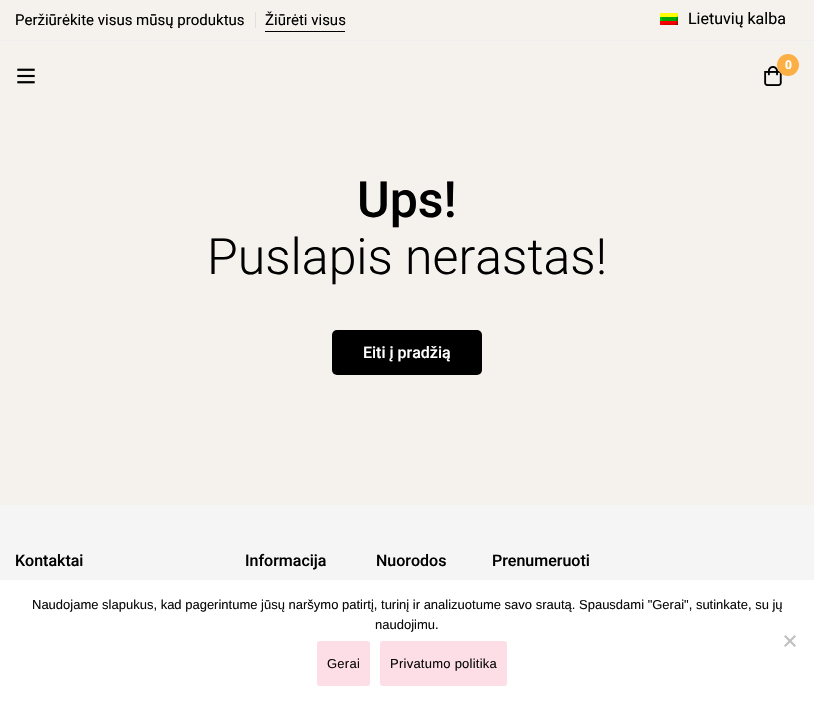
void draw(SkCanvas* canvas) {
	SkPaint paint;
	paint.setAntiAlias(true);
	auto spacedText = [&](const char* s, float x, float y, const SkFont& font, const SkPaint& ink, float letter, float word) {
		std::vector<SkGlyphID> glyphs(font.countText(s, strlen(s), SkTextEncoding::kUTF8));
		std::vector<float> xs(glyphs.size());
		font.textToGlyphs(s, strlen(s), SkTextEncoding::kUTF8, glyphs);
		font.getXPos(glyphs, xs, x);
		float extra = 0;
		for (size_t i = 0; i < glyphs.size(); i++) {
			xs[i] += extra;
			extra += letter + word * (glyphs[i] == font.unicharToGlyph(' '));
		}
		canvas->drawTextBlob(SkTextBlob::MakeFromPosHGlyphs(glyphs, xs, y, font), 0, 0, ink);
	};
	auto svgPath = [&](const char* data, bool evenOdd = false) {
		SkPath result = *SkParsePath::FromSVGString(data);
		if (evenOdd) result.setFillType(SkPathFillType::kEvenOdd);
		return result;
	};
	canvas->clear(0xfff5f1ed);
	paint.setColor(0xffeeeeee);
	canvas->drawRect(SkRect::MakeXYWH(0, 40, 814, 1), paint);
	SkFont f1(fontMgr->matchFamilyStyle("Roboto", SkFontStyle::Normal()), 15);
	f1.setSubpixel(true);
	paint.setColor(0xff000000);
	canvas->drawString("Peržiūrėkite visus mūsų produktus", 15, 25, f1, paint);
	paint.setColor(0xffe0e0e0);
	canvas->drawRect(SkRect::MakeXYWH(255, 12, 1, 16), paint);
	paint.setColor(0xff000000);
	canvas->drawString("Žiūrėti visus", 265, 25, f1, paint);
	canvas->drawRect(SkRect::MakeXYWH(265, 31, 80, 1), paint);
	canvas->drawImageRect(SkImages::DeferredFromEncodedData(SkData::MakeFromFileName("img1.png")), SkRect::MakeXYWH(660, 13, 18, 12), SkSamplingOptions());
	SkFont f2(fontMgr->matchFamilyStyle("Roboto", SkFontStyle::Normal()), 16);
	f2.setSubpixel(true);
	canvas->drawString("Lietuvių kalba", 688, 24, f2, paint);
	canvas->drawImageRect(SkImages::DeferredFromEncodedData(SkData::MakeFromFileName("img2.png")), SkRect::MakeXYWH(764, 66, 18, 20), SkSamplingOptions());
	paint.setColor(0xfffcaf45);
	canvas->drawCircle(788, 65, 11, paint);
	SkFont f3(fontMgr->matchFamilyStyle("Roboto", SkFontStyle::Bold()), 12);
	f3.setSubpixel(true);
	paint.setColor(0xffffffff);
	canvas->drawString("0", 785, 69, f3, paint);
	canvas->drawImageRect(SkImages::DeferredFromEncodedData(SkData::MakeFromFileName("img3.png")), SkRect::MakeXYWH(17, 68, 18, 16), SkSamplingOptions());
	SkFont f4(fontMgr->matchFamilyStyle("Roboto", SkFontStyle(500, SkFontStyle::kNormal_Width, SkFontStyle::kUpright_Slant)), 50);
	f4.setSubpixel(true);
	paint.setColor(0xff000000);
	canvas->drawString("Ups!", 357, 217, f4, paint);
	SkFont f5(fontMgr->matchFamilyStyle("Roboto", SkFontStyle(300, SkFontStyle::kNormal_Width, SkFontStyle::kUpright_Slant)), 50);
	f5.setSubpixel(true);
	canvas->drawString("Puslapis nerastas!", 207, 274, f5, paint);
	canvas->drawRoundRect(SkRect::MakeXYWH(332, 330, 150, 45), 5, 5, paint);
	SkFont f6(fontMgr->matchFamilyStyle("Roboto", SkFontStyle(500, SkFontStyle::kNormal_Width, SkFontStyle::kUpright_Slant)), 16);
	f6.setSubpixel(true);
	paint.setColor(0xffffffff);
	canvas->drawString("Eiti į pradžią", 363, 358, f6, paint);
	paint.setColor(0xfff5f5f5);
	canvas->drawRect(SkRect::MakeXYWH(0, 505, 814, 75), paint);
	paint.setColor(0xff000000);
	canvas->drawString("Kontaktai", 15, 566, f6, paint);
	canvas->drawString("Informacija", 245, 566, f6, paint);
	canvas->drawString("Nuorodos", 376, 566, f6, paint);
	canvas->drawString("Prenumeruoti", 492, 566, f6, paint);
	paint.setColor(0xffffffff);
	canvas->drawRect(SkRect::MakeXYWH(0, 580, 814, 121), paint);
	SkFont f7(fontMgr->matchFamilyStyle("Liberation Sans", SkFontStyle::Normal()), 13);
	f7.setSubpixel(true);
	paint.setColor(0xff0a0a0a);
	canvas->drawString("Naudojame slapukus, kad pagerintume jūsų naršymo patirtį, turinį ir analizuotume savo srautą. Spausdami \"Gerai\", sutinkate, su jų", 32, 609, f7, paint);
	canvas->drawString("naudojimu.", 375, 629, f7, paint);
	paint.setColor(0xffc0c0c0);
	canvas->drawPath(svgPath("M794.5 635L796 636.5L785.5 647L784 645.5Z"), paint);
	canvas->drawPath(svgPath("M784 636.5L785.5 635L796 645.5L794.5 647Z"), paint);
	paint.setColor(0xfffddde6);
	canvas->drawRoundRect(SkRect::MakeXYWH(317, 641, 53, 45), 3, 3, paint);
	paint.setColor(0xff0a0a0a);
	spacedText("Gerai", 327, 668, f7, paint, 0.25, 0);
	paint.setColor(0xfffddde6);
	canvas->drawRoundRect(SkRect::MakeXYWH(380, 641, 127, 45), 3, 3, paint);
	paint.setColor(0xff0a0a0a);
	spacedText("Privatumo politika", 390, 668, f7, paint, 0.25, 0);
}
